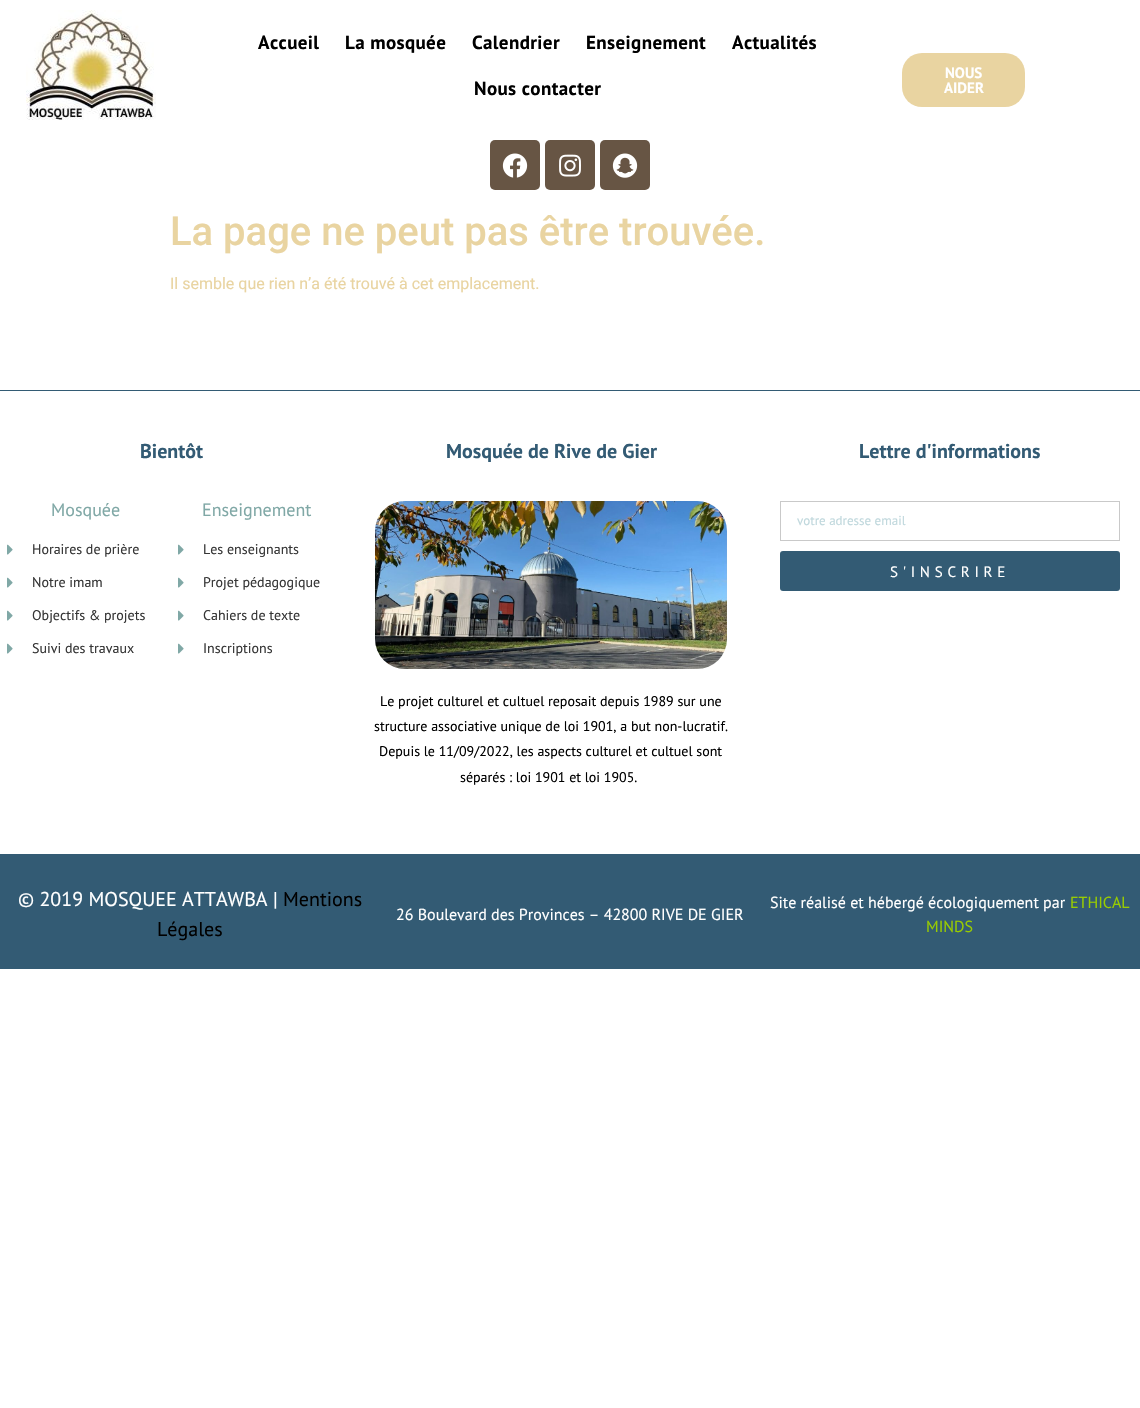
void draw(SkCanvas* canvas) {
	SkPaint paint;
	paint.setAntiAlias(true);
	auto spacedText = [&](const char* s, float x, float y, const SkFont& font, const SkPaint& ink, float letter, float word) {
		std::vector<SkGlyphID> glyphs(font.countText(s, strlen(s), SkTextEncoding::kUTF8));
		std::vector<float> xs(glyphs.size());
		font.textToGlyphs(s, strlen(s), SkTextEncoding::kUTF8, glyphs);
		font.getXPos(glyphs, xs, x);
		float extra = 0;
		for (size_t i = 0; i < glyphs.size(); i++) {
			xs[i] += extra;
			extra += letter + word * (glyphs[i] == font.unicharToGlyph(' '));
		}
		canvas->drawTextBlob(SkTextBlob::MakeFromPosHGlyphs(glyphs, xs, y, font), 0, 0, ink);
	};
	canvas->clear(0xffffffff);
	canvas->drawImageRect(SkImages::DeferredFromEncodedData(SkData::MakeFromFileName("img1.png")), SkRect::MakeXYWH(26, 10, 130, 110), SkSamplingOptions());
	SkFont f1(fontMgr->matchFamilyStyle("PT Sans", SkFontStyle::Bold()), 19);
	f1.setSubpixel(true);
	paint.setColor(0xff000000);
	spacedText("Accueil", 258, 49, f1, paint, 0.4, 0);
	spacedText("La mosquée", 345, 49, f1, paint, 0.4, 0);
	spacedText("Calendrier", 472, 49, f1, paint, 0.4, 0);
	spacedText("Enseignement", 586, 49, f1, paint, 0.4, 0);
	spacedText("Actualités", 732, 49, f1, paint, 0.4, 0);
	spacedText("Nous contacter", 474, 95, f1, paint, 0.4, 0);
	paint.setColor(0xffe9d4a1);
	canvas->drawRoundRect(SkRect::MakeXYWH(902, 53, 123, 54), 20, 20, paint);
	SkFont f2(fontMgr->matchFamilyStyle("PT Sans", SkFontStyle::Bold()), 15);
	f2.setSubpixel(true);
	paint.setColor(0xffffffff);
	canvas->drawString("NOUS", 945, 78, f2, paint);
	canvas->drawString("AIDER", 944, 93, f2, paint);
	paint.setColor(0xff675544);
	canvas->drawRoundRect(SkRect::MakeXYWH(490, 140, 50, 50), 5, 5, paint);
	canvas->drawImageRect(SkImages::DeferredFromEncodedData(SkData::MakeFromFileName("img2.png")), SkRect::MakeXYWH(502, 153, 26, 25), SkSamplingOptions());
	canvas->drawRoundRect(SkRect::MakeXYWH(545, 140, 50, 50), 5, 5, paint);
	canvas->drawImageRect(SkImages::DeferredFromEncodedData(SkData::MakeFromFileName("img3.png")), SkRect::MakeXYWH(559, 154, 22, 23), SkSamplingOptions());
	canvas->drawRoundRect(SkRect::MakeXYWH(600, 140, 50, 50), 5, 5, paint);
	canvas->drawImageRect(SkImages::DeferredFromEncodedData(SkData::MakeFromFileName("img4.png")), SkRect::MakeXYWH(612, 153, 26, 25), SkSamplingOptions());
	SkFont f3(fontMgr->matchFamilyStyle("Roboto", SkFontStyle(500, SkFontStyle::kNormal_Width, SkFontStyle::kUpright_Slant)), 40);
	f3.setSubpixel(true);
	paint.setColor(0xffe9d4a1);
	canvas->drawString("La page ne peut pas être trouvée.", 170, 245, f3, paint);
	SkFont f4(fontMgr->matchFamilyStyle("Roboto", SkFontStyle::Normal()), 16);
	f4.setSubpixel(true);
	canvas->drawString("Il semble que rien n’a été trouvé à cet emplacement.", 170, 289, f4, paint);
	paint.setColor(0xff335b74);
	canvas->drawRect(SkRect::MakeXYWH(0, 390, 1140, 1), paint);
	SkFont f5(fontMgr->matchFamilyStyle("PT Sans", SkFontStyle::Bold()), 20);
	f5.setSubpixel(true);
	canvas->drawString("Bientôt", 140, 458, f5, paint);
	SkFont f6(fontMgr->matchFamilyStyle("PT Sans", SkFontStyle::Normal()), 18);
	f6.setSubpixel(true);
	paint.setColor(0xff80a8a6);
	canvas->drawString("Mosquée", 51, 516, f6, paint);
	canvas->drawImageRect(SkImages::DeferredFromEncodedData(SkData::MakeFromFileName("img5.png")), SkRect::MakeXYWH(7, 544, 6, 11), SkSamplingOptions());
	SkFont f7(fontMgr->matchFamilyStyle("PT Sans", SkFontStyle::Normal()), 14);
	f7.setSubpixel(true);
	paint.setColor(0xff363636);
	canvas->drawString("Horaires de prière", 32, 554, f7, paint);
	canvas->drawImageRect(SkImages::DeferredFromEncodedData(SkData::MakeFromFileName("img5.png")), SkRect::MakeXYWH(7, 577, 6, 11), SkSamplingOptions());
	canvas->drawString("Notre imam", 32, 587, f7, paint);
	canvas->drawImageRect(SkImages::DeferredFromEncodedData(SkData::MakeFromFileName("img5.png")), SkRect::MakeXYWH(7, 610, 6, 11), SkSamplingOptions());
	canvas->drawString("Objectifs & projets", 32, 620, f7, paint);
	canvas->drawImageRect(SkImages::DeferredFromEncodedData(SkData::MakeFromFileName("img5.png")), SkRect::MakeXYWH(7, 643, 6, 11), SkSamplingOptions());
	canvas->drawString("Suivi des travaux", 32, 653, f7, paint);
	paint.setColor(0xff80a8a6);
	canvas->drawString("Enseignement", 202, 516, f6, paint);
	canvas->drawImageRect(SkImages::DeferredFromEncodedData(SkData::MakeFromFileName("img5.png")), SkRect::MakeXYWH(178, 544, 6, 11), SkSamplingOptions());
	paint.setColor(0xff363636);
	canvas->drawString("Les enseignants", 203, 554, f7, paint);
	canvas->drawImageRect(SkImages::DeferredFromEncodedData(SkData::MakeFromFileName("img5.png")), SkRect::MakeXYWH(178, 577, 6, 11), SkSamplingOptions());
	canvas->drawString("Projet pédagogique", 203, 587, f7, paint);
	canvas->drawImageRect(SkImages::DeferredFromEncodedData(SkData::MakeFromFileName("img5.png")), SkRect::MakeXYWH(178, 610, 6, 11), SkSamplingOptions());
	canvas->drawString("Cahiers de texte", 203, 620, f7, paint);
	canvas->drawImageRect(SkImages::DeferredFromEncodedData(SkData::MakeFromFileName("img5.png")), SkRect::MakeXYWH(178, 643, 6, 11), SkSamplingOptions());
	canvas->drawString("Inscriptions", 203, 653, f7, paint);
	paint.setColor(0xff335b74);
	canvas->drawString("Mosquée de Rive de Gier", 446, 458, f5, paint);
	canvas->drawImageRect(SkImages::DeferredFromEncodedData(SkData::MakeFromFileName("img6.png")), SkRect::MakeXYWH(375, 501, 352, 168), SkSamplingOptions());
	paint.setColor(0xff000000);
	canvas->drawString("Le projet culturel et cultuel reposait depuis 1989 sur une", 380, 706, f7, paint);
	canvas->drawString("structure associative unique de loi 1901, a but non-lucratif.", 374, 731, f7, paint);
	canvas->drawString("Depuis le 11/09/2022, les aspects culturel et cultuel sont", 379, 756, f7, paint);
	canvas->drawString("séparés : loi 1901 et loi 1905.", 460, 782, f7, paint);
	paint.setColor(0xff335b74);
	canvas->drawString("Lettre d'informations", 859, 458, f5, paint);
	paint.setStroke(true);
	paint.setStrokeWidth(1);
	paint.setColor(0xffc9c9c9);
	canvas->drawRect(SkRect::MakeXYWH(780.5, 501.5, 339, 39), paint);
	SkFont f8(fontMgr->matchFamilyStyle("PT Sans", SkFontStyle::Normal()), 13);
	f8.setSubpixel(true);
	paint.setStroke(false);
	paint.setColor(0xffc0d8dd);
	canvas->drawString("votre adresse email", 797, 525, f8, paint);
	paint.setColor(0xff335b74);
	canvas->drawRoundRect(SkRect::MakeXYWH(780, 551, 340, 40), 3, 3, paint);
	SkFont f9(fontMgr->matchFamilyStyle("PT Sans", SkFontStyle::Normal()), 15);
	f9.setSubpixel(true);
	paint.setColor(0xffffffff);
	spacedText("S'INSCRIRE", 890, 577, f9, paint, 4.75, 0);
	paint.setColor(0xff335b74);
	canvas->drawRect(SkRect::MakeXYWH(0, 854, 1140, 115), paint);
	SkFont f10(fontMgr->matchFamilyStyle("PT Sans", SkFontStyle::Normal()), 20);
	f10.setSubpixel(true);
	paint.setColor(0xffffffff);
	canvas->drawString("© 2019 MOSQUEE ATTAWBA |", 18, 906, f10, paint);
	paint.setColor(0xff000000);
	canvas->drawString("Mentions", 283, 906, f10, paint);
	canvas->drawString("Légales", 157, 936, f10, paint);
	SkFont f11(fontMgr->matchFamilyStyle("PT Sans", SkFontStyle::Normal()), 16);
	f11.setSubpixel(true);
	paint.setColor(0xffffffff);
	canvas->drawString("26 Boulevard des Provinces – 42800 RIVE DE GIER", 396, 920, f11, paint);
	canvas->drawString("Site réalisé et hébergé écologiquement par", 770, 908, f11, paint);
	paint.setColor(0xff99cc00);
	canvas->drawString("ETHICAL", 1070, 908, f11, paint);
	canvas->drawString("MINDS", 926, 932, f11, paint);
}
